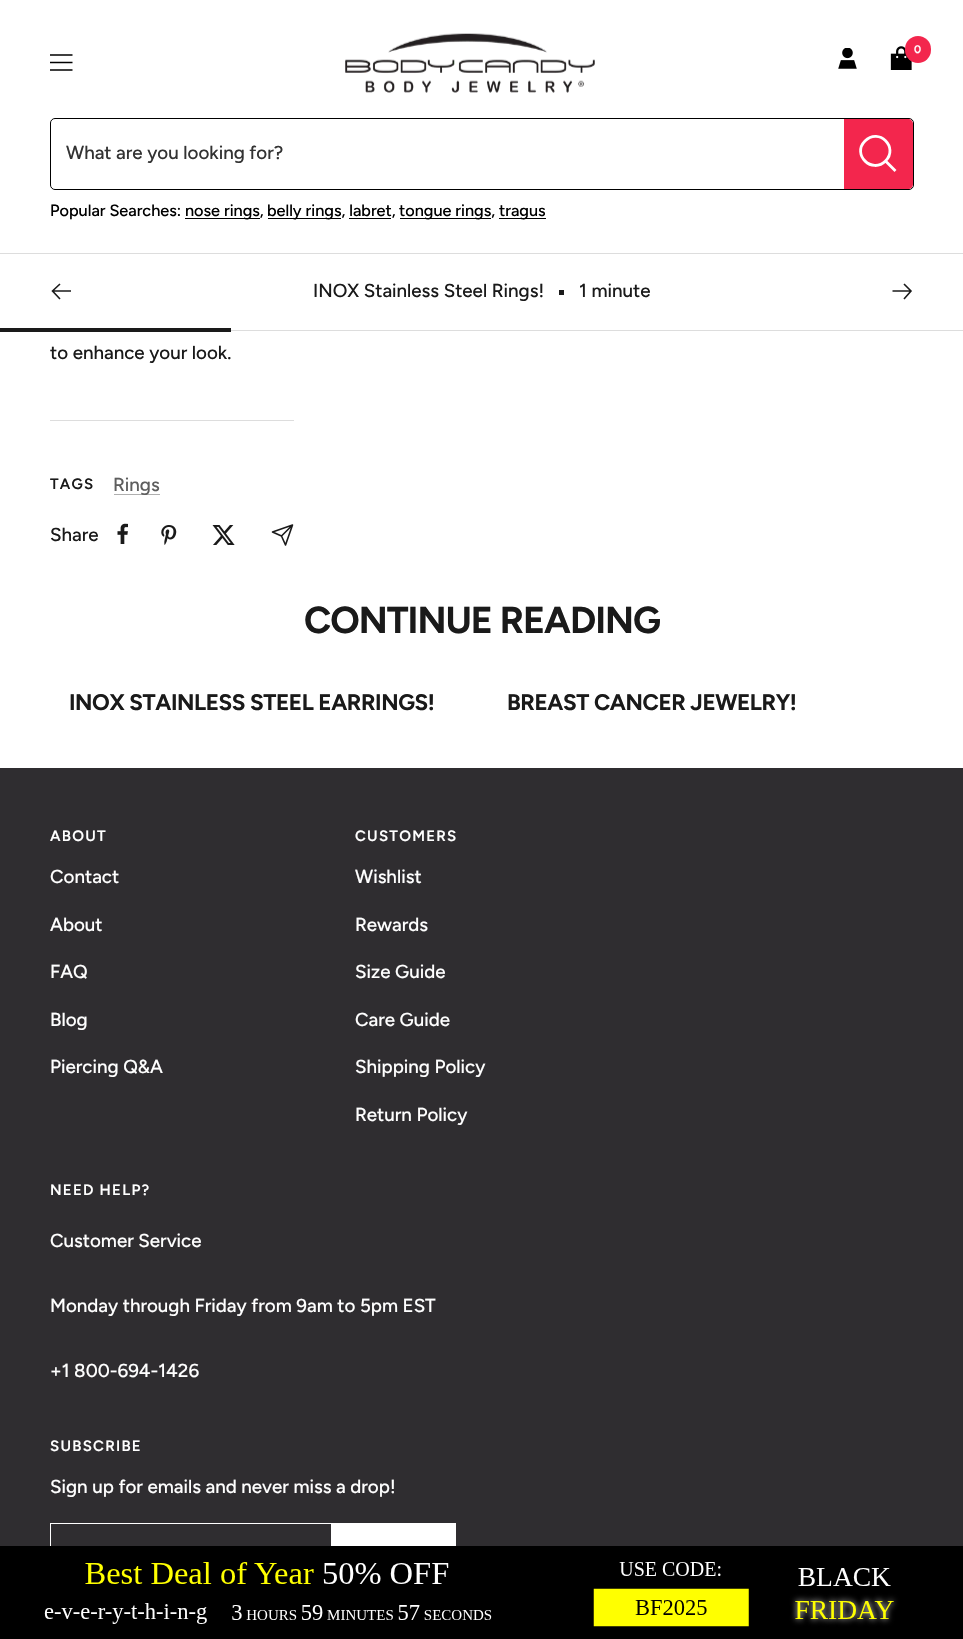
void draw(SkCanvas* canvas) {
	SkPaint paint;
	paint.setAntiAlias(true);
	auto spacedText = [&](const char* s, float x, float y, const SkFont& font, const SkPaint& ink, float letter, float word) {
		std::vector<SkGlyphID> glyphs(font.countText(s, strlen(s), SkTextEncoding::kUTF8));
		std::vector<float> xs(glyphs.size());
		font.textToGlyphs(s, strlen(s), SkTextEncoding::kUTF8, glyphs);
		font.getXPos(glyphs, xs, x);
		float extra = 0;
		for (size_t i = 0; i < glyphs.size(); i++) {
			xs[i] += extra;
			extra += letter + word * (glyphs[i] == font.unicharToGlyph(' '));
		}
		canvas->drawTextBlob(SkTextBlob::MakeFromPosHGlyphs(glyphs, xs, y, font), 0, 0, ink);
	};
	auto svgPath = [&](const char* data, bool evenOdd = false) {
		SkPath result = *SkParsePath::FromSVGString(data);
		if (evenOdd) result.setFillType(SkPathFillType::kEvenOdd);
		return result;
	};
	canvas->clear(0xffffffff);
	paint.setColor(0xffdddddd);
	canvas->drawPath(svgPath("M0 252V254H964V1V252Z"), paint);
	paint.setColor(0xffffffff);
	canvas->drawRect(SkRect::MakeXYWH(0, 252, 963, 1), paint);
	canvas->drawImageRect(SkImages::DeferredFromEncodedData(SkData::MakeFromFileName("img1.png")), SkRect::MakeXYWH(345, 33, 250, 60), SkSamplingOptions());
	canvas->drawImageRect(SkImages::DeferredFromEncodedData(SkData::MakeFromFileName("img2.png")), SkRect::MakeXYWH(838, 48, 19, 21), SkSamplingOptions());
	canvas->drawImageRect(SkImages::DeferredFromEncodedData(SkData::MakeFromFileName("img3.png")), SkRect::MakeXYWH(890, 46, 22, 24), SkSamplingOptions());
	paint.setColor(0xfff3264d);
	canvas->drawRoundRect(SkRect::MakeXYWH(905, 36, 26, 27), 13, 13, paint);
	SkFont f1(fontMgr->matchFamilyStyle("Figtree", SkFontStyle(600, SkFontStyle::kNormal_Width, SkFontStyle::kUpright_Slant)), 11);
	f1.setSubpixel(true);
	paint.setColor(0xffffffff);
	canvas->drawString("0", 914, 53, f1, paint);
	paint.setStroke(true);
	paint.setStrokeWidth(1.6);
	paint.setColor(0xff000000);
	canvas->drawPath(svgPath("M50 55H72.5M50 70H72.5ZM50 62.5H72.5Z"), paint);
	paint.setStrokeWidth(1);
	canvas->drawRoundRect(SkRect::MakeXYWH(50.5, 118.5, 863, 71), 4.5, 4.5, paint);
	SkFont f2(fontMgr->matchFamilyStyle("Figtree", SkFontStyle(500, SkFontStyle::kNormal_Width, SkFontStyle::kUpright_Slant)), 18.75);
	f2.setSubpixel(true);
	paint.setStroke(false);
	paint.setColor(0xff333333);
	canvas->drawString("What are you looking for?", 66, 159, f2, paint);
	paint.setColor(0xfff3264d);
	canvas->drawPath(svgPath("M844 119H908C911 119 913 121 913 124V184C913 187 911 189 908 189H844Z"), paint);
	paint.setStroke(true);
	paint.setStrokeWidth(2.8);
	paint.setColor(0xffffffff);
	canvas->drawPath(svgPath("M885.5 161C899 147.5 879 127 865 141C851.5 154.5 872 174.5 885.5 161ZM885.5 161L895.5 171"), paint);
	SkFont f3(fontMgr->matchFamilyStyle("Figtree", SkFontStyle(500, SkFontStyle::kNormal_Width, SkFontStyle::kUpright_Slant)), 16.25);
	f3.setSubpixel(true);
	paint.setStroke(false);
	paint.setColor(0xff000000);
	canvas->drawString("Popular Searches:", 50, 216, f3, paint);
	canvas->drawRect(SkRect::MakeXYWH(185, 218, 75, 1), paint);
	canvas->drawString("nose rings,", 185, 216, f3, paint);
	canvas->drawRect(SkRect::MakeXYWH(268, 218, 73, 1), paint);
	canvas->drawString("belly rings, labret,", 267, 216, f3, paint);
	canvas->drawRect(SkRect::MakeXYWH(400, 218, 91, 1), paint);
	canvas->drawString("tongue rings,", 399, 216, f3, paint);
	canvas->drawRect(SkRect::MakeXYWH(499, 218, 47, 1), paint);
	canvas->drawString("tragus", 499, 216, f3, paint);
	canvas->drawRect(SkRect::MakeXYWH(349, 218, 42, 1), paint);
	paint.setColor(0xffdddddd);
	canvas->drawRect(SkRect::MakeXYWH(231, 330, 732, 1), paint);
	paint.setStroke(true);
	paint.setStrokeWidth(1.6);
	paint.setColor(0xff1a1a1a);
	canvas->drawPath(svgPath("M71 291H52.5M60 284L52.5 291L60 299"), paint);
	paint.setStroke(false);
	canvas->drawString("INOX Stainless Steel Rings!", 313, 297, f2, paint);
	canvas->drawRect(SkRect::MakeXYWH(559, 290, 5, 5), paint);
	canvas->drawString("1 minute", 579, 297, f2, paint);
	paint.setStroke(true);
	canvas->drawPath(svgPath("M892.5 291H911M904 284L911 291L904 299"), paint);
	paint.setStroke(false);
	canvas->drawRect(SkRect::MakeXYWH(0, 328, 231, 4), paint);
	canvas->drawString("to enhance your look.", 50, 359, f2, paint);
	paint.setColor(0xffdddddd);
	canvas->drawRect(SkRect::MakeXYWH(50, 420, 244, 1), paint);
	SkFont f4(fontMgr->matchFamilyStyle("Figtree", SkFontStyle(600, SkFontStyle::kNormal_Width, SkFontStyle::kUpright_Slant)), 15);
	f4.setSubpixel(true);
	paint.setColor(0xff1a1a1a);
	spacedText("TAGS", 50, 489, f4, paint, 1.25, 0);
	paint.setColor(0xffafafaf);
	canvas->drawRect(SkRect::MakeXYWH(114, 494, 46, 1), paint);
	paint.setColor(0xff5e5e5e);
	canvas->drawString("Rings", 113, 491, f2, paint);
	paint.setColor(0xff1a1a1a);
	canvas->drawString("Share", 50, 541, f2, paint);
	canvas->drawImageRect(SkImages::DeferredFromEncodedData(SkData::MakeFromFileName("img4.png")), SkRect::MakeXYWH(117, 523, 11, 21), SkSamplingOptions());
	canvas->drawImageRect(SkImages::DeferredFromEncodedData(SkData::MakeFromFileName("img5.png")), SkRect::MakeXYWH(161, 525, 16, 20), SkSamplingOptions());
	canvas->drawImageRect(SkImages::DeferredFromEncodedData(SkData::MakeFromFileName("img6.png")), SkRect::MakeXYWH(212, 525, 23, 20), SkSamplingOptions());
	paint.setStroke(true);
	paint.setStrokeCap(SkPaint::kRound_Cap);
	paint.setStrokeJoin(SkPaint::kRound_Join);
	canvas->drawPath(svgPath("M292.5 525L285.5 545L281.5 536M292.5 525L272.5 532L281.5 536M292.5 525L281.5 536"), paint);
	SkFont f5(fontMgr->matchFamilyStyle("Figtree", SkFontStyle::Bold()), 37.5);
	f5.setSubpixel(true);
	paint.setStroke(false);
	spacedText("CONTINUE READING", 304, 633, f5, paint, -1, 0);
	SkFont f6(fontMgr->matchFamilyStyle("Figtree", SkFontStyle::Bold()), 22.5);
	f6.setSubpixel(true);
	spacedText("INOX STAINLESS STEEL EARRINGS!", 69, 710, f6, paint, -0.4, 0);
	spacedText("BREAST CANCER JEWELRY!", 507, 710, f6, paint, -0.4, 0);
	paint.setColor(0xff2f2d30);
	canvas->drawRect(SkRect::MakeXYWH(0, 768, 963, 778), paint);
	paint.setColor(0xffffffff);
	spacedText("ABOUT", 50, 841, f4, paint, 1.25, 0);
	canvas->drawString("Contact", 50, 883, f2, paint);
	canvas->drawString("About", 50, 931, f2, paint);
	canvas->drawString("FAQ", 50, 978, f2, paint);
	canvas->drawString("Blog", 50, 1026, f2, paint);
	canvas->drawString("Piercing Q&A", 50, 1073, f2, paint);
	spacedText("CUSTOMERS", 355, 841, f4, paint, 1.25, 0);
	canvas->drawString("Wishlist", 355, 883, f2, paint);
	canvas->drawString("Rewards", 355, 931, f2, paint);
	canvas->drawString("Size Guide", 355, 978, f2, paint);
	canvas->drawString("Care Guide", 355, 1026, f2, paint);
	canvas->drawString("Shipping Policy", 355, 1073, f2, paint);
	canvas->drawString("Return Policy", 355, 1121, f2, paint);
	spacedText("NEED HELP?", 50, 1195, f4, paint, 1.25, 0);
	canvas->drawString("Customer Service", 50, 1247, f2, paint);
	canvas->drawString("Monday through Friday from 9am to 5pm EST", 50, 1312, f2, paint);
	canvas->drawString("+1 800-694-1426", 50, 1377, f2, paint);
	spacedText("SUBSCRIBE", 50, 1451, f4, paint, 1.25, 0);
	canvas->drawString("Sign up for emails and never miss a drop!", 50, 1493, f2, paint);
	paint.setStroke(true);
	paint.setStrokeWidth(1);
	paint.setStrokeCap(SkPaint::kButt_Cap);
	paint.setStrokeJoin(SkPaint::kMiter_Join);
	canvas->drawRect(SkRect::MakeXYWH(50.5, 1523.5, 405, 64), paint);
	paint.setStroke(false);
	canvas->drawRect(SkRect::MakeXYWH(331, 1524, 124, 22), paint);
	canvas->drawImageRect(SkImages::DeferredFromEncodedData(SkData::MakeFromFileName("img7.png")), SkRect::MakeXYWH(0, 1546, 963, 93), SkSamplingOptions());
}
